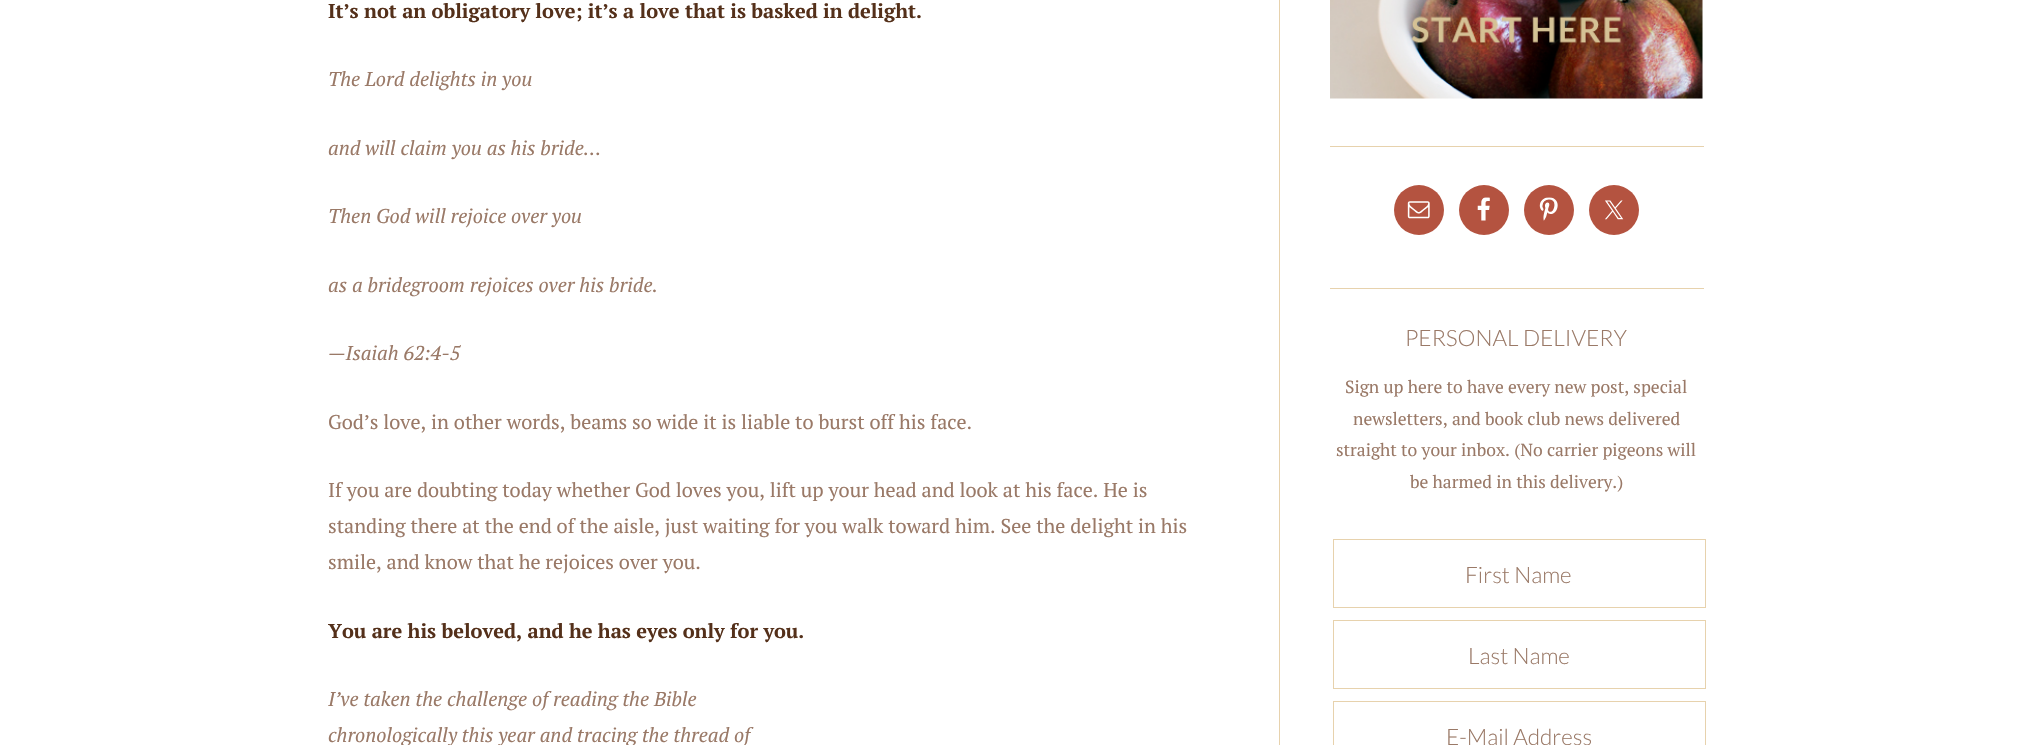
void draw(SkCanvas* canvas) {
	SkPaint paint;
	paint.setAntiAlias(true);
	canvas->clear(0xffffffff);
	SkFont f1(fontMgr->matchFamilyStyle("PT Serif", SkFontStyle::Bold()), 20);
	f1.setSubpixel(true);
	paint.setColor(0xff54301a);
	canvas->drawString("It’s not an obligatory love; it’s a love that is basked in delight.", 328, 18, f1, paint);
	SkFont f2(fontMgr->matchFamilyStyle("PT Serif", SkFontStyle::Italic()), 20);
	f2.setSubpixel(true);
	paint.setColor(0xff9a7967);
	canvas->drawString("The Lord delights in you", 328, 86, f2, paint);
	canvas->drawString("and will claim you as his bride…", 328, 155, f2, paint);
	canvas->drawString("Then God will rejoice over you", 328, 223, f2, paint);
	canvas->drawString("as a bridegroom rejoices over his bride.", 328, 292, f2, paint);
	canvas->drawString("—Isaiah 62:4-5", 328, 360, f2, paint);
	SkFont f3(fontMgr->matchFamilyStyle("PT Serif", SkFontStyle::Normal()), 20);
	f3.setSubpixel(true);
	canvas->drawString("God’s love, in other words, beams so wide it is liable to burst off his face.", 328, 429, f3, paint);
	canvas->drawString("If you are doubting today whether God loves you, lift up your head and look at his face. He is", 328, 497, f3, paint);
	canvas->drawString("standing there at the end of the aisle, just waiting for you walk toward him. See the delight in his", 328, 533, f3, paint);
	canvas->drawString("smile, and know that he rejoices over you.", 328, 569, f3, paint);
	paint.setColor(0xff54301a);
	canvas->drawString("You are his beloved, and he has eyes only for you.", 328, 638, f1, paint);
	paint.setColor(0xff9a7967);
	canvas->drawString("I’ve taken the challenge of reading the Bible", 328, 706, f2, paint);
	canvas->drawString("chronologically this year and tracing the thread of", 328, 742, f2, paint);
	paint.setColor(0xffe7d2ad);
	canvas->drawRect(SkRect::MakeXYWH(1279, 0, 1, 745), paint);
	canvas->drawRect(SkRect::MakeXYWH(1330, 146, 374, 1), paint);
	canvas->drawImageRect(SkImages::DeferredFromEncodedData(SkData::MakeFromFileName("img1.png")), SkRect::MakeXYWH(1330, 0, 373, 99), SkSamplingOptions());
	canvas->drawRect(SkRect::MakeXYWH(1330, 288, 374, 1), paint);
	paint.setColor(0xffb45340);
	canvas->drawCircle(1419, 210, 25, paint);
	canvas->drawImageRect(SkImages::DeferredFromEncodedData(SkData::MakeFromFileName("img2.png")), SkRect::MakeXYWH(1407, 201, 23, 18), SkSamplingOptions());
	canvas->drawCircle(1484, 210, 25, paint);
	canvas->drawImageRect(SkImages::DeferredFromEncodedData(SkData::MakeFromFileName("img3.png")), SkRect::MakeXYWH(1477, 197, 13, 24), SkSamplingOptions());
	canvas->drawCircle(1549, 210, 25, paint);
	canvas->drawImageRect(SkImages::DeferredFromEncodedData(SkData::MakeFromFileName("img4.png")), SkRect::MakeXYWH(1539, 197, 19, 24), SkSamplingOptions());
	canvas->drawCircle(1614, 210, 25, paint);
	canvas->drawImageRect(SkImages::DeferredFromEncodedData(SkData::MakeFromFileName("img5.png")), SkRect::MakeXYWH(1605, 200, 19, 20), SkSamplingOptions());
	SkFont f4(fontMgr->matchFamilyStyle("Lato", SkFontStyle(300, SkFontStyle::kNormal_Width, SkFontStyle::kUpright_Slant)), 22.5);
	f4.setSubpixel(true);
	paint.setColor(0xff9a7967);
	canvas->drawString("PERSONAL DELIVERY", 1405, 346, f4, paint);
	SkFont f5(fontMgr->matchFamilyStyle("PT Serif", SkFontStyle::Normal()), 17.5);
	f5.setSubpixel(true);
	canvas->drawString("Sign up here to have every new post, special", 1345, 393, f5, paint);
	canvas->drawString("newsletters, and book club news delivered", 1353, 425, f5, paint);
	canvas->drawString("straight to your inbox. (No carrier pigeons will", 1336, 456, f5, paint);
	canvas->drawString("be harmed in this delivery.)", 1410, 488, f5, paint);
	paint.setStroke(true);
	paint.setStrokeWidth(1);
	paint.setColor(0xffe7d2ad);
	canvas->drawRect(SkRect::MakeXYWH(1333.5, 539.5, 372, 68), paint);
	paint.setStroke(false);
	paint.setColor(0xff9a7967);
	canvas->drawString("First Name", 1465, 583, f4, paint);
	paint.setStroke(true);
	paint.setColor(0xffe7d2ad);
	canvas->drawRect(SkRect::MakeXYWH(1333.5, 620.5, 372, 68), paint);
	paint.setStroke(false);
	paint.setColor(0xff9a7967);
	canvas->drawString("Last Name", 1468, 664, f4, paint);
	paint.setStroke(true);
	paint.setColor(0xffe7d2ad);
	canvas->drawRect(SkRect::MakeXYWH(1333.5, 701.5, 372, 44), paint);
	paint.setStroke(false);
	paint.setColor(0xff9a7967);
	canvas->drawString("E-Mail Address", 1446, 745, f4, paint);
}
